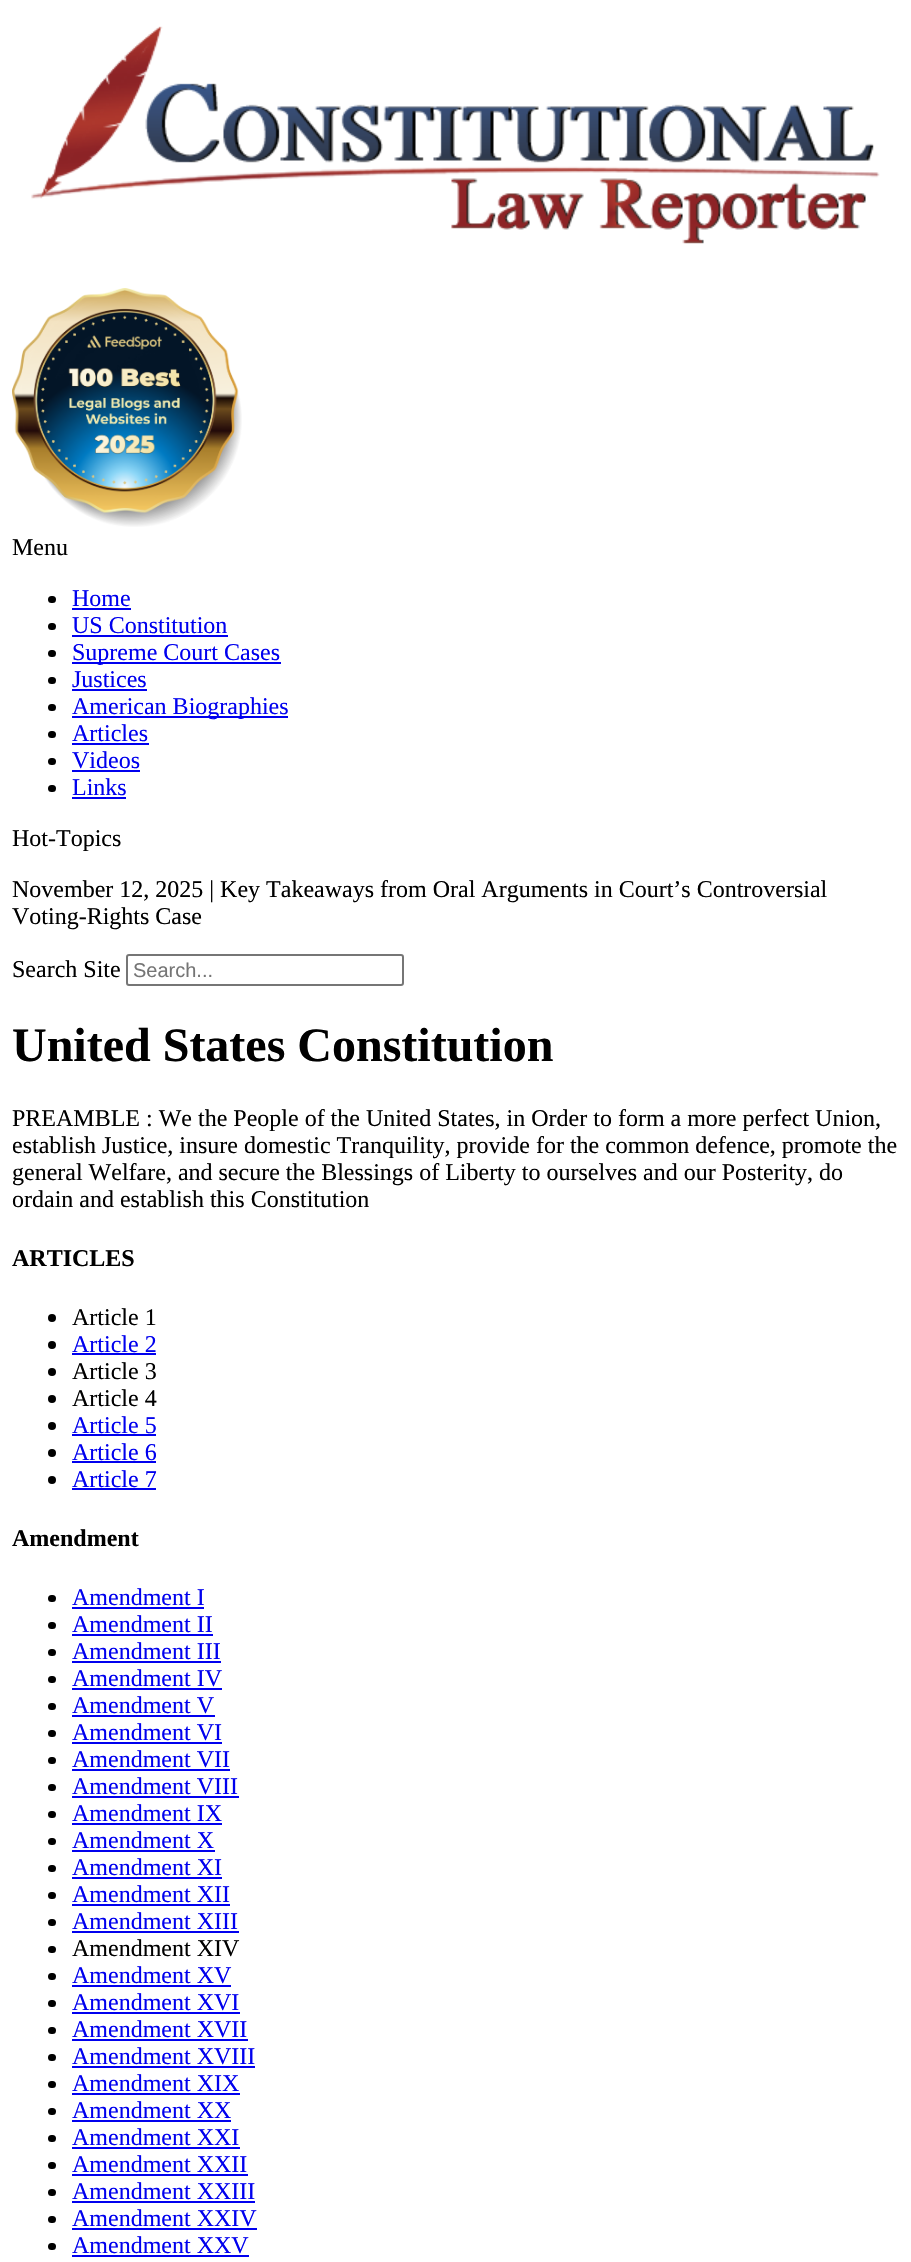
void draw(SkCanvas* canvas) {
	SkPaint paint;
	paint.setAntiAlias(true);
	canvas->clear(0xffffffff);
	canvas->drawImageRect(SkImages::DeferredFromEncodedData(SkData::MakeFromFileName("img1.png")), SkRect::MakeXYWH(31, 26, 849, 218), SkSamplingOptions());
	canvas->drawImageRect(SkImages::DeferredFromEncodedData(SkData::MakeFromFileName("img2.png")), SkRect::MakeXYWH(12, 288, 230, 239), SkSamplingOptions());
	SkFont f1(fontMgr->matchFamilyStyle("Liberation Serif", SkFontStyle::Normal()), 24);
	f1.setSubpixel(true);
	paint.setColor(0xff000000);
	canvas->drawString("Menu", 12, 555, f1, paint);
	canvas->drawRoundRect(SkRect::MakeXYWH(48, 596, 8, 7), 3.5, 3.5, paint);
	paint.setColor(0xff0000ee);
	canvas->drawString("Home", 72, 606, f1, paint);
	canvas->drawRect(SkRect::MakeXYWH(72, 608, 59, 2), paint);
	paint.setColor(0xff000000);
	canvas->drawRoundRect(SkRect::MakeXYWH(48, 623, 8, 7), 3.5, 3.5, paint);
	paint.setColor(0xff0000ee);
	canvas->drawString("US Constitution", 72, 633, f1, paint);
	canvas->drawRect(SkRect::MakeXYWH(72, 635, 156, 2), paint);
	paint.setColor(0xff000000);
	canvas->drawRoundRect(SkRect::MakeXYWH(48, 650, 8, 7), 3.5, 3.5, paint);
	paint.setColor(0xff0000ee);
	canvas->drawRect(SkRect::MakeXYWH(72, 662, 209, 2), paint);
	canvas->drawString("Supreme Court Cases", 72, 660, f1, paint);
	paint.setColor(0xff000000);
	canvas->drawRoundRect(SkRect::MakeXYWH(48, 677, 8, 7), 3.5, 3.5, paint);
	paint.setColor(0xff0000ee);
	canvas->drawString("Justices", 72, 687, f1, paint);
	canvas->drawRect(SkRect::MakeXYWH(72, 689, 75, 2), paint);
	paint.setColor(0xff000000);
	canvas->drawRoundRect(SkRect::MakeXYWH(48, 704, 8, 7), 3.5, 3.5, paint);
	paint.setColor(0xff0000ee);
	canvas->drawRect(SkRect::MakeXYWH(72, 716, 216, 2), paint);
	canvas->drawString("American Biographies", 72, 714, f1, paint);
	paint.setColor(0xff000000);
	canvas->drawRoundRect(SkRect::MakeXYWH(48, 731, 8, 7), 3.5, 3.5, paint);
	paint.setColor(0xff0000ee);
	canvas->drawString("Articles", 72, 741, f1, paint);
	canvas->drawRect(SkRect::MakeXYWH(72, 743, 77, 2), paint);
	paint.setColor(0xff000000);
	canvas->drawRoundRect(SkRect::MakeXYWH(48, 758, 8, 7), 3.5, 3.5, paint);
	paint.setColor(0xff0000ee);
	canvas->drawString("Videos", 72, 768, f1, paint);
	canvas->drawRect(SkRect::MakeXYWH(72, 770, 68, 2), paint);
	paint.setColor(0xff000000);
	canvas->drawRoundRect(SkRect::MakeXYWH(48, 785, 8, 7), 3.5, 3.5, paint);
	paint.setColor(0xff0000ee);
	canvas->drawString("Links", 72, 795, f1, paint);
	canvas->drawRect(SkRect::MakeXYWH(72, 797, 54, 2), paint);
	paint.setColor(0xff000000);
	canvas->drawString("Hot-Topics", 12, 846, f1, paint);
	canvas->drawString("November 12, 2025 | Key Takeaways from Oral Arguments in Court’s Controversial", 12, 897, f1, paint);
	canvas->drawString("Voting-Rights Case", 12, 924, f1, paint);
	canvas->drawString("Search Site", 12, 977, f1, paint);
	paint.setStroke(true);
	paint.setStrokeWidth(2);
	paint.setColor(0xff767676);
	canvas->drawRoundRect(SkRect::MakeXYWH(127, 955, 276, 30), 2, 2, paint);
	SkFont f2(fontMgr->matchFamilyStyle("Liberation Sans", SkFontStyle::Normal()), 20);
	f2.setSubpixel(true);
	paint.setStroke(false);
	paint.setColor(0xff757575);
	canvas->drawString("Search...", 133, 977, f2, paint);
	SkFont f3(fontMgr->matchFamilyStyle("Liberation Serif", SkFontStyle::Bold()), 48);
	f3.setSubpixel(true);
	paint.setColor(0xff000000);
	canvas->drawString("United States Constitution", 12, 1061, f3, paint);
	canvas->drawString("PREAMBLE : We the People of the United States, in Order to form a more perfect Union,", 12, 1126, f1, paint);
	canvas->drawString("establish Justice, insure domestic Tranquility, provide for the common defence, promote the", 12, 1153, f1, paint);
	canvas->drawString("general Welfare, and secure the Blessings of Liberty to ourselves and our Posterity, do", 12, 1180, f1, paint);
	canvas->drawString("ordain and establish this Constitution", 12, 1207, f1, paint);
	SkFont f4(fontMgr->matchFamilyStyle("Liberation Serif", SkFontStyle::Bold()), 24);
	f4.setSubpixel(true);
	canvas->drawString("ARTICLES", 12, 1266, f4, paint);
	canvas->drawCircle(52, 1318, 4, paint);
	canvas->drawString("Article 1", 72, 1325, f1, paint);
	canvas->drawCircle(52, 1345, 4, paint);
	paint.setColor(0xff0000ee);
	canvas->drawString("Article 2", 72, 1352, f1, paint);
	canvas->drawRect(SkRect::MakeXYWH(72, 1353, 84, 2), paint);
	paint.setColor(0xff000000);
	canvas->drawCircle(52, 1372, 4, paint);
	canvas->drawString("Article 3", 72, 1379, f1, paint);
	canvas->drawCircle(52, 1399, 4, paint);
	canvas->drawString("Article 4", 72, 1406, f1, paint);
	canvas->drawCircle(52, 1426, 4, paint);
	paint.setColor(0xff0000ee);
	canvas->drawString("Article 5", 72, 1433, f1, paint);
	canvas->drawRect(SkRect::MakeXYWH(72, 1434, 84, 2), paint);
	paint.setColor(0xff000000);
	canvas->drawCircle(52, 1453, 4, paint);
	paint.setColor(0xff0000ee);
	canvas->drawString("Article 6", 72, 1460, f1, paint);
	canvas->drawRect(SkRect::MakeXYWH(72, 1461, 84, 2), paint);
	paint.setColor(0xff000000);
	canvas->drawCircle(52, 1480, 4, paint);
	paint.setColor(0xff0000ee);
	canvas->drawString("Article 7", 72, 1487, f1, paint);
	canvas->drawRect(SkRect::MakeXYWH(72, 1488, 84, 2), paint);
	paint.setColor(0xff000000);
	canvas->drawString("Amendment", 12, 1546, f4, paint);
	canvas->drawRoundRect(SkRect::MakeXYWH(48, 1595, 8, 7), 3.5, 3.5, paint);
	paint.setColor(0xff0000ee);
	canvas->drawString("Amendment I", 72, 1605, f1, paint);
	canvas->drawRect(SkRect::MakeXYWH(72, 1607, 132, 2), paint);
	paint.setColor(0xff000000);
	canvas->drawRoundRect(SkRect::MakeXYWH(48, 1622, 8, 7), 3.5, 3.5, paint);
	paint.setColor(0xff0000ee);
	canvas->drawString("Amendment II", 72, 1632, f1, paint);
	canvas->drawRect(SkRect::MakeXYWH(72, 1634, 141, 2), paint);
	paint.setColor(0xff000000);
	canvas->drawRoundRect(SkRect::MakeXYWH(48, 1649, 8, 7), 3.5, 3.5, paint);
	paint.setColor(0xff0000ee);
	canvas->drawString("Amendment III", 72, 1659, f1, paint);
	canvas->drawRect(SkRect::MakeXYWH(72, 1661, 149, 2), paint);
	paint.setColor(0xff000000);
	canvas->drawRoundRect(SkRect::MakeXYWH(48, 1676, 8, 7), 3.5, 3.5, paint);
	paint.setColor(0xff0000ee);
	canvas->drawString("Amendment IV", 72, 1686, f1, paint);
	canvas->drawRect(SkRect::MakeXYWH(72, 1688, 150, 2), paint);
	paint.setColor(0xff000000);
	canvas->drawRoundRect(SkRect::MakeXYWH(48, 1703, 8, 7), 3.5, 3.5, paint);
	paint.setColor(0xff0000ee);
	canvas->drawString("Amendment V", 72, 1713, f1, paint);
	canvas->drawRect(SkRect::MakeXYWH(72, 1715, 143, 2), paint);
	paint.setColor(0xff000000);
	canvas->drawRoundRect(SkRect::MakeXYWH(48, 1730, 8, 7), 3.5, 3.5, paint);
	paint.setColor(0xff0000ee);
	canvas->drawString("Amendment VI", 72, 1740, f1, paint);
	canvas->drawRect(SkRect::MakeXYWH(72, 1742, 150, 2), paint);
	paint.setColor(0xff000000);
	canvas->drawRoundRect(SkRect::MakeXYWH(48, 1757, 8, 7), 3.5, 3.5, paint);
	paint.setColor(0xff0000ee);
	canvas->drawString("Amendment VII", 72, 1767, f1, paint);
	canvas->drawRect(SkRect::MakeXYWH(72, 1769, 158, 2), paint);
	paint.setColor(0xff000000);
	canvas->drawRoundRect(SkRect::MakeXYWH(48, 1784, 8, 7), 3.5, 3.5, paint);
	paint.setColor(0xff0000ee);
	canvas->drawString("Amendment VIII", 72, 1794, f1, paint);
	canvas->drawRect(SkRect::MakeXYWH(72, 1796, 167, 2), paint);
	paint.setColor(0xff000000);
	canvas->drawRoundRect(SkRect::MakeXYWH(48, 1811, 8, 7), 3.5, 3.5, paint);
	paint.setColor(0xff0000ee);
	canvas->drawString("Amendment IX", 72, 1821, f1, paint);
	canvas->drawRect(SkRect::MakeXYWH(72, 1823, 150, 2), paint);
	paint.setColor(0xff000000);
	canvas->drawRoundRect(SkRect::MakeXYWH(48, 1838, 8, 7), 3.5, 3.5, paint);
	paint.setColor(0xff0000ee);
	canvas->drawString("Amendment X", 72, 1848, f1, paint);
	canvas->drawRect(SkRect::MakeXYWH(72, 1850, 143, 2), paint);
	paint.setColor(0xff000000);
	canvas->drawRoundRect(SkRect::MakeXYWH(48, 1865, 8, 7), 3.5, 3.5, paint);
	paint.setColor(0xff0000ee);
	canvas->drawString("Amendment XI", 72, 1875, f1, paint);
	canvas->drawRect(SkRect::MakeXYWH(72, 1877, 150, 2), paint);
	paint.setColor(0xff000000);
	canvas->drawRoundRect(SkRect::MakeXYWH(48, 1892, 8, 7), 3.5, 3.5, paint);
	paint.setColor(0xff0000ee);
	canvas->drawString("Amendment XII", 72, 1902, f1, paint);
	canvas->drawRect(SkRect::MakeXYWH(72, 1904, 158, 2), paint);
	paint.setColor(0xff000000);
	canvas->drawRoundRect(SkRect::MakeXYWH(48, 1919, 8, 7), 3.5, 3.5, paint);
	paint.setColor(0xff0000ee);
	canvas->drawString("Amendment XIII", 72, 1929, f1, paint);
	canvas->drawRect(SkRect::MakeXYWH(72, 1931, 167, 2), paint);
	paint.setColor(0xff000000);
	canvas->drawRoundRect(SkRect::MakeXYWH(48, 1946, 8, 7), 3.5, 3.5, paint);
	canvas->drawString("Amendment XIV", 72, 1956, f1, paint);
	canvas->drawRoundRect(SkRect::MakeXYWH(48, 1973, 8, 7), 3.5, 3.5, paint);
	paint.setColor(0xff0000ee);
	canvas->drawString("Amendment XV", 72, 1983, f1, paint);
	canvas->drawRect(SkRect::MakeXYWH(72, 1985, 159, 2), paint);
	paint.setColor(0xff000000);
	canvas->drawRoundRect(SkRect::MakeXYWH(48, 2000, 8, 7), 3.5, 3.5, paint);
	paint.setColor(0xff0000ee);
	canvas->drawString("Amendment XVI", 72, 2010, f1, paint);
	canvas->drawRect(SkRect::MakeXYWH(72, 2012, 168, 2), paint);
	paint.setColor(0xff000000);
	canvas->drawRoundRect(SkRect::MakeXYWH(48, 2027, 8, 7), 3.5, 3.5, paint);
	paint.setColor(0xff0000ee);
	canvas->drawString("Amendment XVII", 72, 2037, f1, paint);
	canvas->drawRect(SkRect::MakeXYWH(72, 2039, 176, 2), paint);
	paint.setColor(0xff000000);
	canvas->drawRoundRect(SkRect::MakeXYWH(48, 2054, 8, 7), 3.5, 3.5, paint);
	paint.setColor(0xff0000ee);
	canvas->drawString("Amendment XVIII", 72, 2064, f1, paint);
	canvas->drawRect(SkRect::MakeXYWH(72, 2066, 183, 2), paint);
	paint.setColor(0xff000000);
	canvas->drawRoundRect(SkRect::MakeXYWH(48, 2081, 8, 7), 3.5, 3.5, paint);
	paint.setColor(0xff0000ee);
	canvas->drawString("Amendment XIX", 72, 2091, f1, paint);
	canvas->drawRect(SkRect::MakeXYWH(72, 2093, 168, 2), paint);
	paint.setColor(0xff000000);
	canvas->drawRoundRect(SkRect::MakeXYWH(48, 2108, 8, 7), 3.5, 3.5, paint);
	paint.setColor(0xff0000ee);
	canvas->drawString("Amendment XX", 72, 2118, f1, paint);
	canvas->drawRect(SkRect::MakeXYWH(72, 2120, 159, 2), paint);
	paint.setColor(0xff000000);
	canvas->drawRoundRect(SkRect::MakeXYWH(48, 2135, 8, 7), 3.5, 3.5, paint);
	paint.setColor(0xff0000ee);
	canvas->drawString("Amendment XXI", 72, 2145, f1, paint);
	canvas->drawRect(SkRect::MakeXYWH(72, 2147, 168, 2), paint);
	paint.setColor(0xff000000);
	canvas->drawRoundRect(SkRect::MakeXYWH(48, 2162, 8, 7), 3.5, 3.5, paint);
	paint.setColor(0xff0000ee);
	canvas->drawString("Amendment XXII", 72, 2172, f1, paint);
	canvas->drawRect(SkRect::MakeXYWH(72, 2174, 176, 2), paint);
	paint.setColor(0xff000000);
	canvas->drawRoundRect(SkRect::MakeXYWH(48, 2189, 8, 7), 3.5, 3.5, paint);
	paint.setColor(0xff0000ee);
	canvas->drawString("Amendment XXIII", 72, 2199, f1, paint);
	canvas->drawRect(SkRect::MakeXYWH(72, 2201, 183, 2), paint);
	paint.setColor(0xff000000);
	canvas->drawRoundRect(SkRect::MakeXYWH(48, 2216, 8, 7), 3.5, 3.5, paint);
	paint.setColor(0xff0000ee);
	canvas->drawString("Amendment XXIV", 72, 2226, f1, paint);
	canvas->drawRect(SkRect::MakeXYWH(72, 2228, 185, 2), paint);
	paint.setColor(0xff000000);
	canvas->drawRoundRect(SkRect::MakeXYWH(48, 2243, 8, 7), 3.5, 3.5, paint);
	paint.setColor(0xff0000ee);
	canvas->drawString("Amendment XXV", 72, 2253, f1, paint);
	canvas->drawRect(SkRect::MakeXYWH(72, 2255, 177, 2), paint);
}
